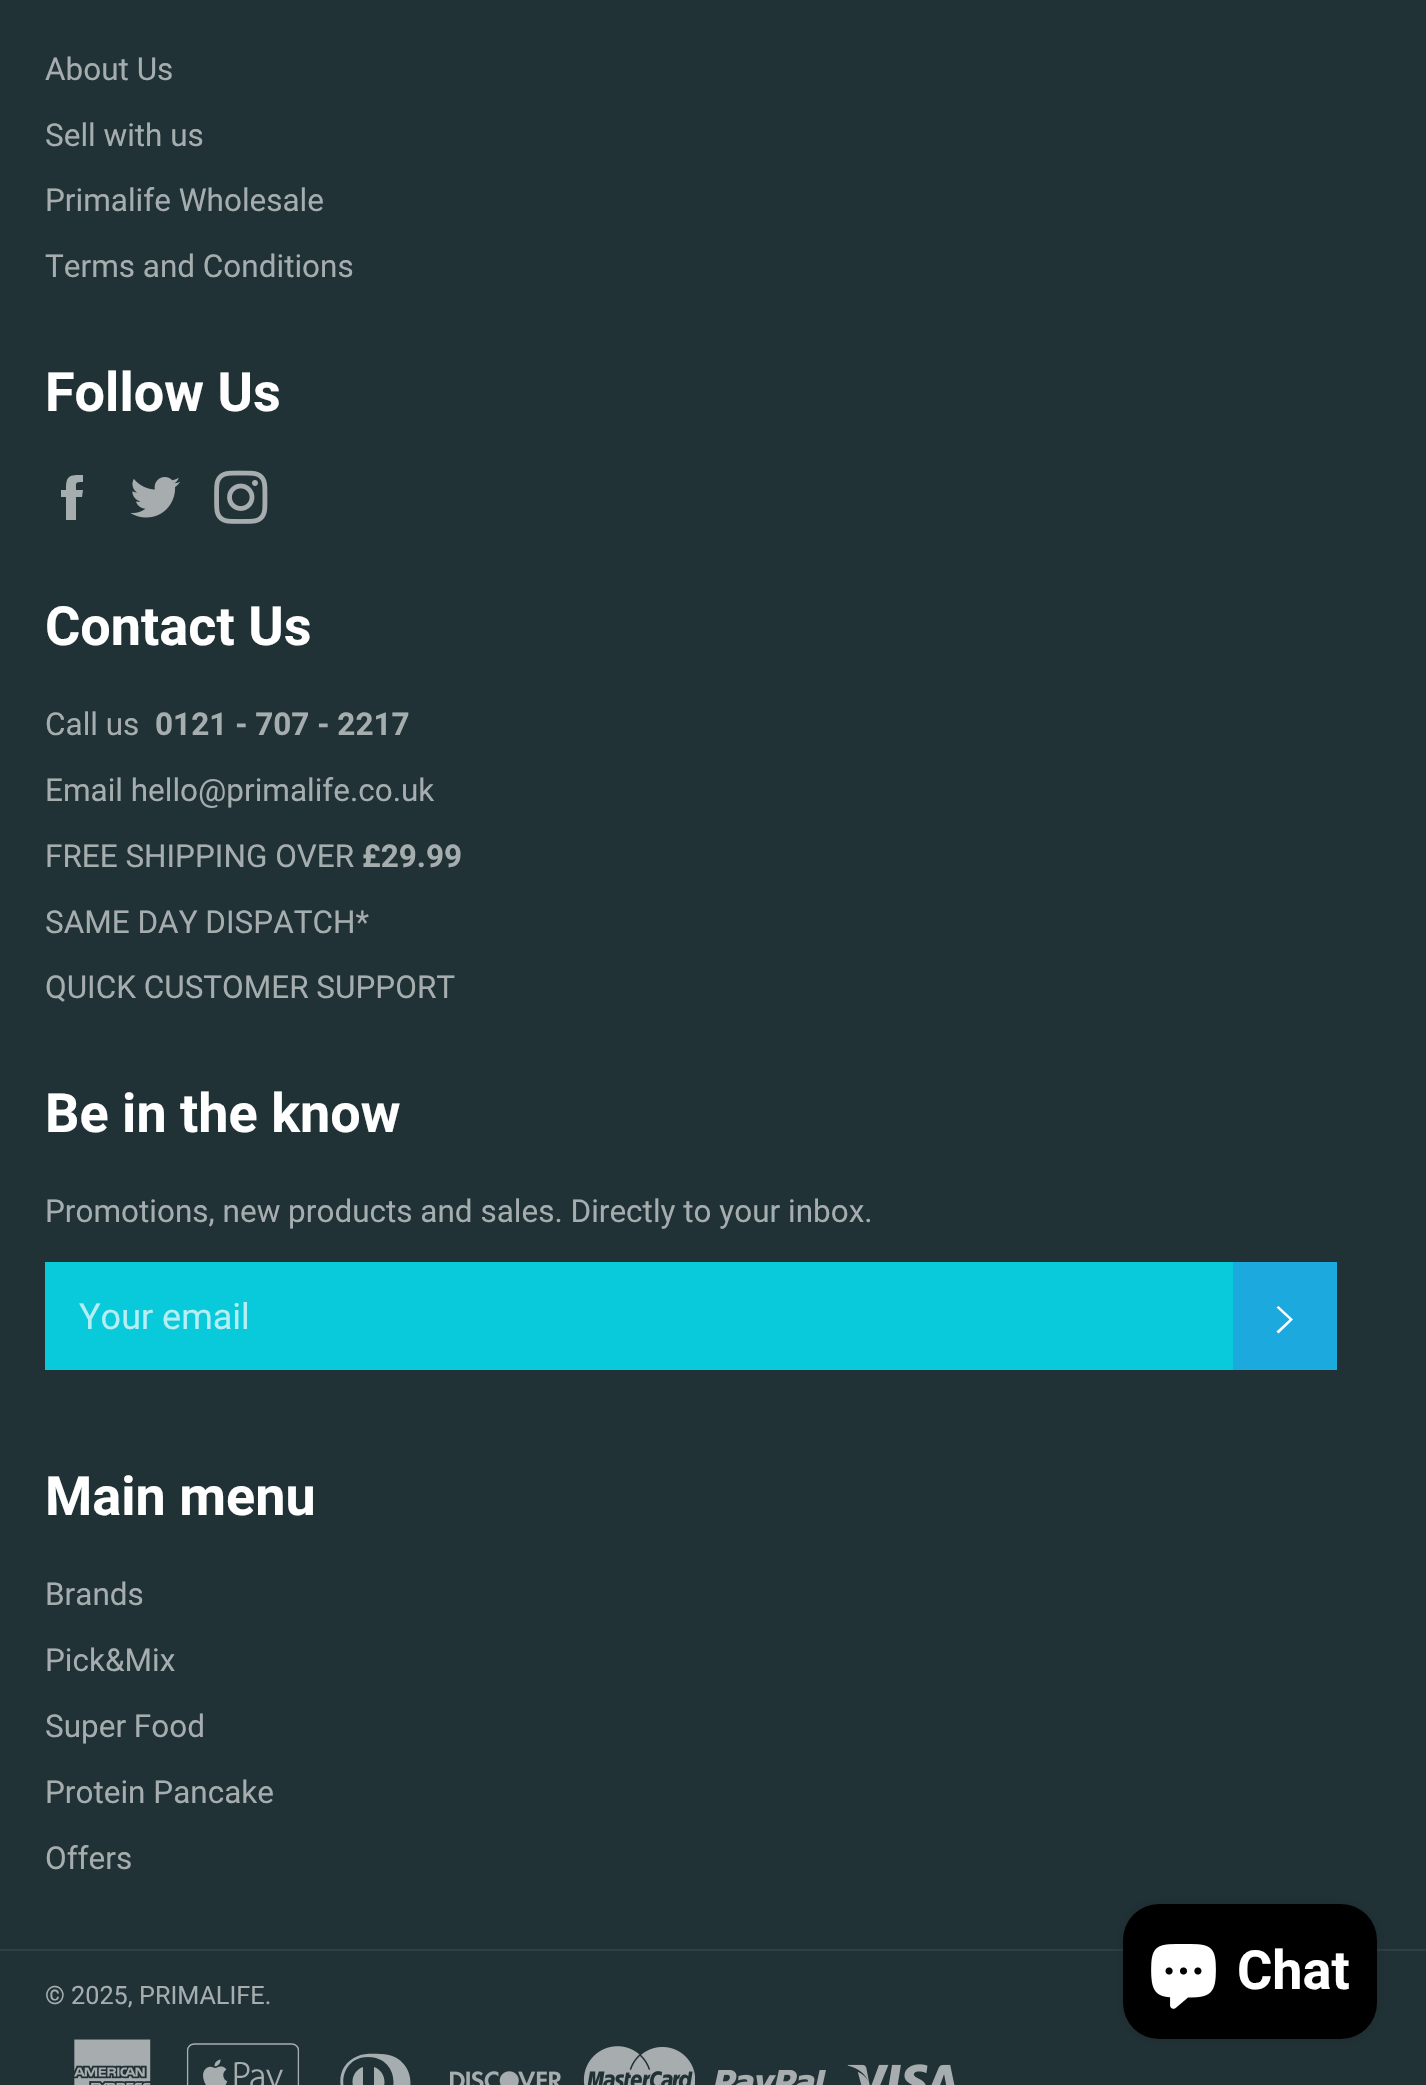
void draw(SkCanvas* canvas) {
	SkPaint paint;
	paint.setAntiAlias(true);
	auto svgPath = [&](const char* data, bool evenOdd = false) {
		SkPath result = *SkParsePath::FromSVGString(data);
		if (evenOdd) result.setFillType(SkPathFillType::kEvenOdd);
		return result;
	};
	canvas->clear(0xff213236);
	SkFont f1(fontMgr->matchFamilyStyle("Roboto", SkFontStyle::Normal()), 31.5);
	f1.setSubpixel(true);
	paint.setColor(0xffa6adaf);
	canvas->drawString("About Us", 45, 80, f1, paint);
	canvas->drawString("Sell with us", 45, 146, f1, paint);
	canvas->drawString("Primalife Wholesale", 45, 211, f1, paint);
	canvas->drawString("Terms and Conditions", 45, 277, f1, paint);
	SkFont f2(fontMgr->matchFamilyStyle("Roboto", SkFontStyle::Bold()), 54);
	f2.setSubpixel(true);
	paint.setColor(0xffffffff);
	canvas->drawString("Follow Us", 45, 411, f2, paint);
	paint.setColor(0xffa6adaf);
	canvas->drawPath(svgPath("M76 490C76 482 75 482 83 482V475C69 475 66 475 66 490H61V497H66V520H76V497H82L83 490Z"), paint);
	canvas->drawImageRect(SkImages::DeferredFromEncodedData(SkData::MakeFromFileName("img1.png")), SkRect::MakeXYWH(130, 477, 50, 41), SkSamplingOptions());
	canvas->drawImageRect(SkImages::DeferredFromEncodedData(SkData::MakeFromFileName("img2.png")), SkRect::MakeXYWH(214, 470, 54, 54), SkSamplingOptions());
	paint.setColor(0xffffffff);
	canvas->drawString("Contact Us", 45, 645, f2, paint);
	paint.setColor(0xffa6adaf);
	canvas->drawString("Call us", 45, 735, f1, paint);
	SkFont f3(fontMgr->matchFamilyStyle("Roboto", SkFontStyle::Bold()), 31.5);
	f3.setSubpixel(true);
	canvas->drawString("0121 - 707 - 2217", 155, 735, f3, paint);
	canvas->drawString("Email hello@primalife.co.uk", 45, 801, f1, paint);
	canvas->drawString("FREE SHIPPING OVER", 45, 867, f1, paint);
	canvas->drawString("£29.99", 362, 867, f3, paint);
	canvas->drawString("SAME DAY DISPATCH*", 45, 933, f1, paint);
	canvas->drawString("QUICK CUSTOMER SUPPORT", 45, 998, f1, paint);
	paint.setColor(0xffffffff);
	canvas->drawString("Be in the know", 45, 1132, f2, paint);
	paint.setColor(0xffa6adaf);
	canvas->drawString("Promotions, new products and sales. Directly to your inbox.", 45, 1222, f1, paint);
	paint.setColor(0xff09cadb);
	canvas->drawRect(SkRect::MakeXYWH(45, 1262, 1188, 108), paint);
	SkFont f4(fontMgr->matchFamilyStyle("Roboto", SkFontStyle::Normal()), 36);
	f4.setSubpixel(true);
	paint.setColor(0xffb5eff4);
	canvas->drawString("Your email", 79, 1329, f4, paint);
	paint.setColor(0xff1ca9de);
	canvas->drawRect(SkRect::MakeXYWH(1233, 1262, 104, 108), paint);
	paint.setColor(0xffffffff);
	canvas->drawPath(svgPath("M1276.5 1307.5L1278.5 1306L1293 1319.5L1278.5 1333.5L1276.5 1331.5L1289.5 1319.5Z"), paint);
	canvas->drawString("Main menu", 45, 1515, f2, paint);
	paint.setColor(0xffa6adaf);
	canvas->drawString("Brands", 45, 1605, f1, paint);
	canvas->drawString("Pick&Mix", 45, 1671, f1, paint);
	canvas->drawString("Super Food", 45, 1737, f1, paint);
	canvas->drawString("Protein Pancake", 45, 1803, f1, paint);
	canvas->drawString("Offers", 45, 1869, f1, paint);
	paint.setColor(0xff2b4146);
	canvas->drawRect(SkRect::MakeXYWH(0, 1949, 1426, 2), paint);
	SkFont f5(fontMgr->matchFamilyStyle("Roboto", SkFontStyle::Normal()), 25.25);
	f5.setSubpixel(true);
	paint.setColor(0xffa6adaf);
	canvas->drawString("© 2025, PRIMALIFE.", 45, 2004, f5, paint);
	canvas->drawImageRect(SkImages::DeferredFromEncodedData(SkData::MakeFromFileName("img3.png")), SkRect::MakeXYWH(74, 2039, 77, 46), SkSamplingOptions());
	canvas->drawImageRect(SkImages::DeferredFromEncodedData(SkData::MakeFromFileName("img4.png")), SkRect::MakeXYWH(186, 2043, 114, 42), SkSamplingOptions());
	canvas->drawPath(svgPath("M381 2054C414 2054 422 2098 391 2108C384 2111 376 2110 368 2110C338 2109 329 2067 358 2056C365 2053 374 2054 381 2054ZM368 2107C402 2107 402 2057 368 2057C335 2057 335 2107 368 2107ZM363 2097C349 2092 349 2072 363 2067ZM374 2067C388 2072 388 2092 374 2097Z"), paint);
	canvas->drawImageRect(SkImages::DeferredFromEncodedData(SkData::MakeFromFileName("img5.png")), SkRect::MakeXYWH(450, 2071, 111, 14), SkSamplingOptions());
	canvas->drawImageRect(SkImages::DeferredFromEncodedData(SkData::MakeFromFileName("img6.png")), SkRect::MakeXYWH(583, 2046, 112, 39), SkSamplingOptions());
	canvas->drawImageRect(SkImages::DeferredFromEncodedData(SkData::MakeFromFileName("img7.png")), SkRect::MakeXYWH(715, 2070, 111, 15), SkSamplingOptions());
	canvas->drawImageRect(SkImages::DeferredFromEncodedData(SkData::MakeFromFileName("img8.png")), SkRect::MakeXYWH(847, 2064, 108, 21), SkSamplingOptions());
	paint.setColor(0x26000000);
	paint.setMaskFilter(SkMaskFilter::MakeBlur(kNormal_SkBlurStyle, 5.5));
	canvas->drawRoundRect(SkRect::MakeXYWH(1123, 1904, 254, 135), 36, 36, paint);
	paint.setMaskFilter(nullptr);
	paint.setColor(0xff000000);
	canvas->drawRoundRect(SkRect::MakeXYWH(1123, 1904, 254, 135), 36, 36, paint);
	canvas->drawImageRect(SkImages::DeferredFromEncodedData(SkData::MakeFromFileName("img9.png")), SkRect::MakeXYWH(1151, 1944, 65, 65), SkSamplingOptions());
	paint.setColor(0xffffffff);
	canvas->drawString("Chat", 1237, 1989, f2, paint);
}
